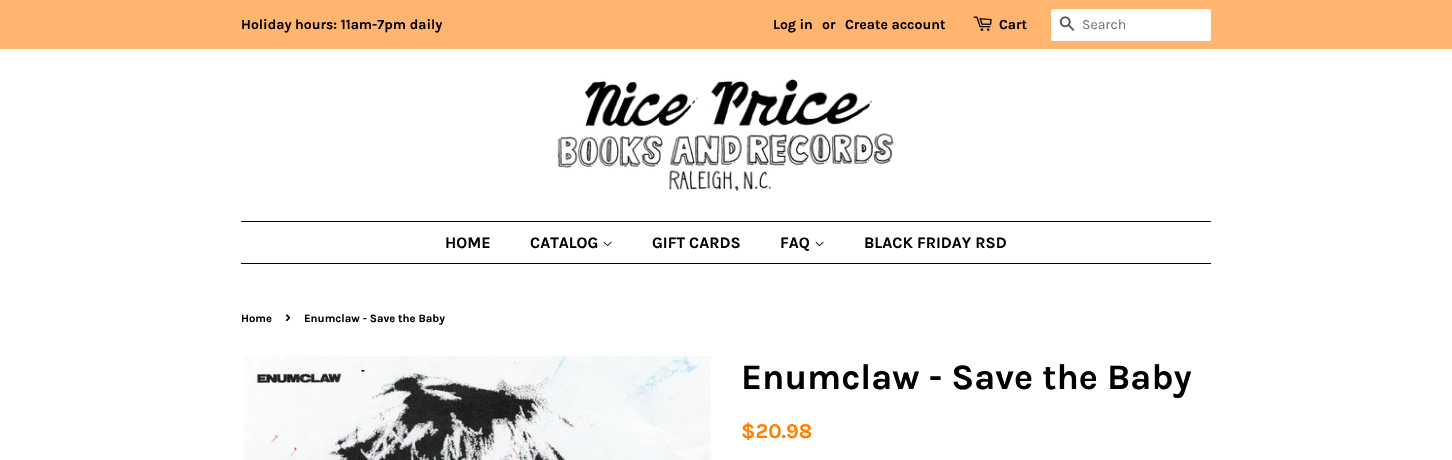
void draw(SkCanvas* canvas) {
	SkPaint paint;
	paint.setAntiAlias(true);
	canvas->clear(0xffffffff);
	paint.setColor(0xffffb470);
	canvas->drawRect(SkRect::MakeXYWH(0, 0, 1452, 49), paint);
	SkFont f1(fontMgr->matchFamilyStyle("Karla", SkFontStyle::Bold()), 14);
	f1.setSubpixel(true);
	paint.setColor(0xff000000);
	canvas->drawString("Holiday hours: 11am-7pm daily", 241, 29, f1, paint);
	canvas->drawString("Log in", 773, 29, f1, paint);
	canvas->drawString("or", 822, 29, f1, paint);
	canvas->drawString("Create account", 845, 29, f1, paint);
	canvas->drawImageRect(SkImages::DeferredFromEncodedData(SkData::MakeFromFileName("img1.png")), SkRect::MakeXYWH(973, 16, 19, 15), SkSamplingOptions());
	canvas->drawString("Cart", 999, 29, f1, paint);
	paint.setColor(0xffffffff);
	canvas->drawRoundRect(SkRect::MakeXYWH(1051, 9, 160, 32), 2, 2, paint);
	canvas->drawImageRect(SkImages::DeferredFromEncodedData(SkData::MakeFromFileName("img2.png")), SkRect::MakeXYWH(1059, 16, 16, 15), SkSamplingOptions());
	SkFont f2(fontMgr->matchFamilyStyle("Karla", SkFontStyle::Normal()), 14);
	f2.setSubpixel(true);
	paint.setColor(0xff757575);
	canvas->drawString("Search", 1082, 29, f2, paint);
	canvas->drawImageRect(SkImages::DeferredFromEncodedData(SkData::MakeFromFileName("img3.png")), SkRect::MakeXYWH(557, 79, 337, 112), SkSamplingOptions());
	paint.setColor(0xff000000);
	canvas->drawRect(SkRect::MakeXYWH(241, 221, 970, 1), paint);
	canvas->drawRect(SkRect::MakeXYWH(241, 263, 970, 1), paint);
	SkFont f3(fontMgr->matchFamilyStyle("Karla", SkFontStyle::Bold()), 16);
	f3.setSubpixel(true);
	canvas->drawString("HOME", 445, 248, f3, paint);
	canvas->drawString("CATALOG", 530, 248, f3, paint);
	canvas->drawImageRect(SkImages::DeferredFromEncodedData(SkData::MakeFromFileName("img4.png")), SkRect::MakeXYWH(603, 241, 9, 6), SkSamplingOptions());
	canvas->drawString("GIFT CARDS", 652, 248, f3, paint);
	canvas->drawString("FAQ", 780, 248, f3, paint);
	canvas->drawImageRect(SkImages::DeferredFromEncodedData(SkData::MakeFromFileName("img4.png")), SkRect::MakeXYWH(815, 241, 9, 6), SkSamplingOptions());
	canvas->drawString("BLACK FRIDAY RSD", 864, 248, f3, paint);
	SkFont f4(fontMgr->matchFamilyStyle("Karla", SkFontStyle::Bold()), 11.25);
	f4.setSubpixel(true);
	canvas->drawString("Home", 241, 322, f4, paint);
	canvas->drawString("›", 285, 322, f3, paint);
	canvas->drawString("Enumclaw - Save the Baby", 304, 322, f4, paint);
	canvas->drawImageRect(SkImages::DeferredFromEncodedData(SkData::MakeFromFileName("img5.png")), SkRect::MakeXYWH(244, 356, 467, 104), SkSamplingOptions());
	SkFont f5(fontMgr->matchFamilyStyle("Karla", SkFontStyle::Bold()), 36);
	f5.setSubpixel(true);
	canvas->drawString("Enumclaw - Save the Baby", 741, 389, f5, paint);
	SkFont f6(fontMgr->matchFamilyStyle("Karla", SkFontStyle::Bold()), 21);
	f6.setSubpixel(true);
	paint.setColor(0xffff8000);
	canvas->drawString("$20.98", 741, 438, f6, paint);
}
